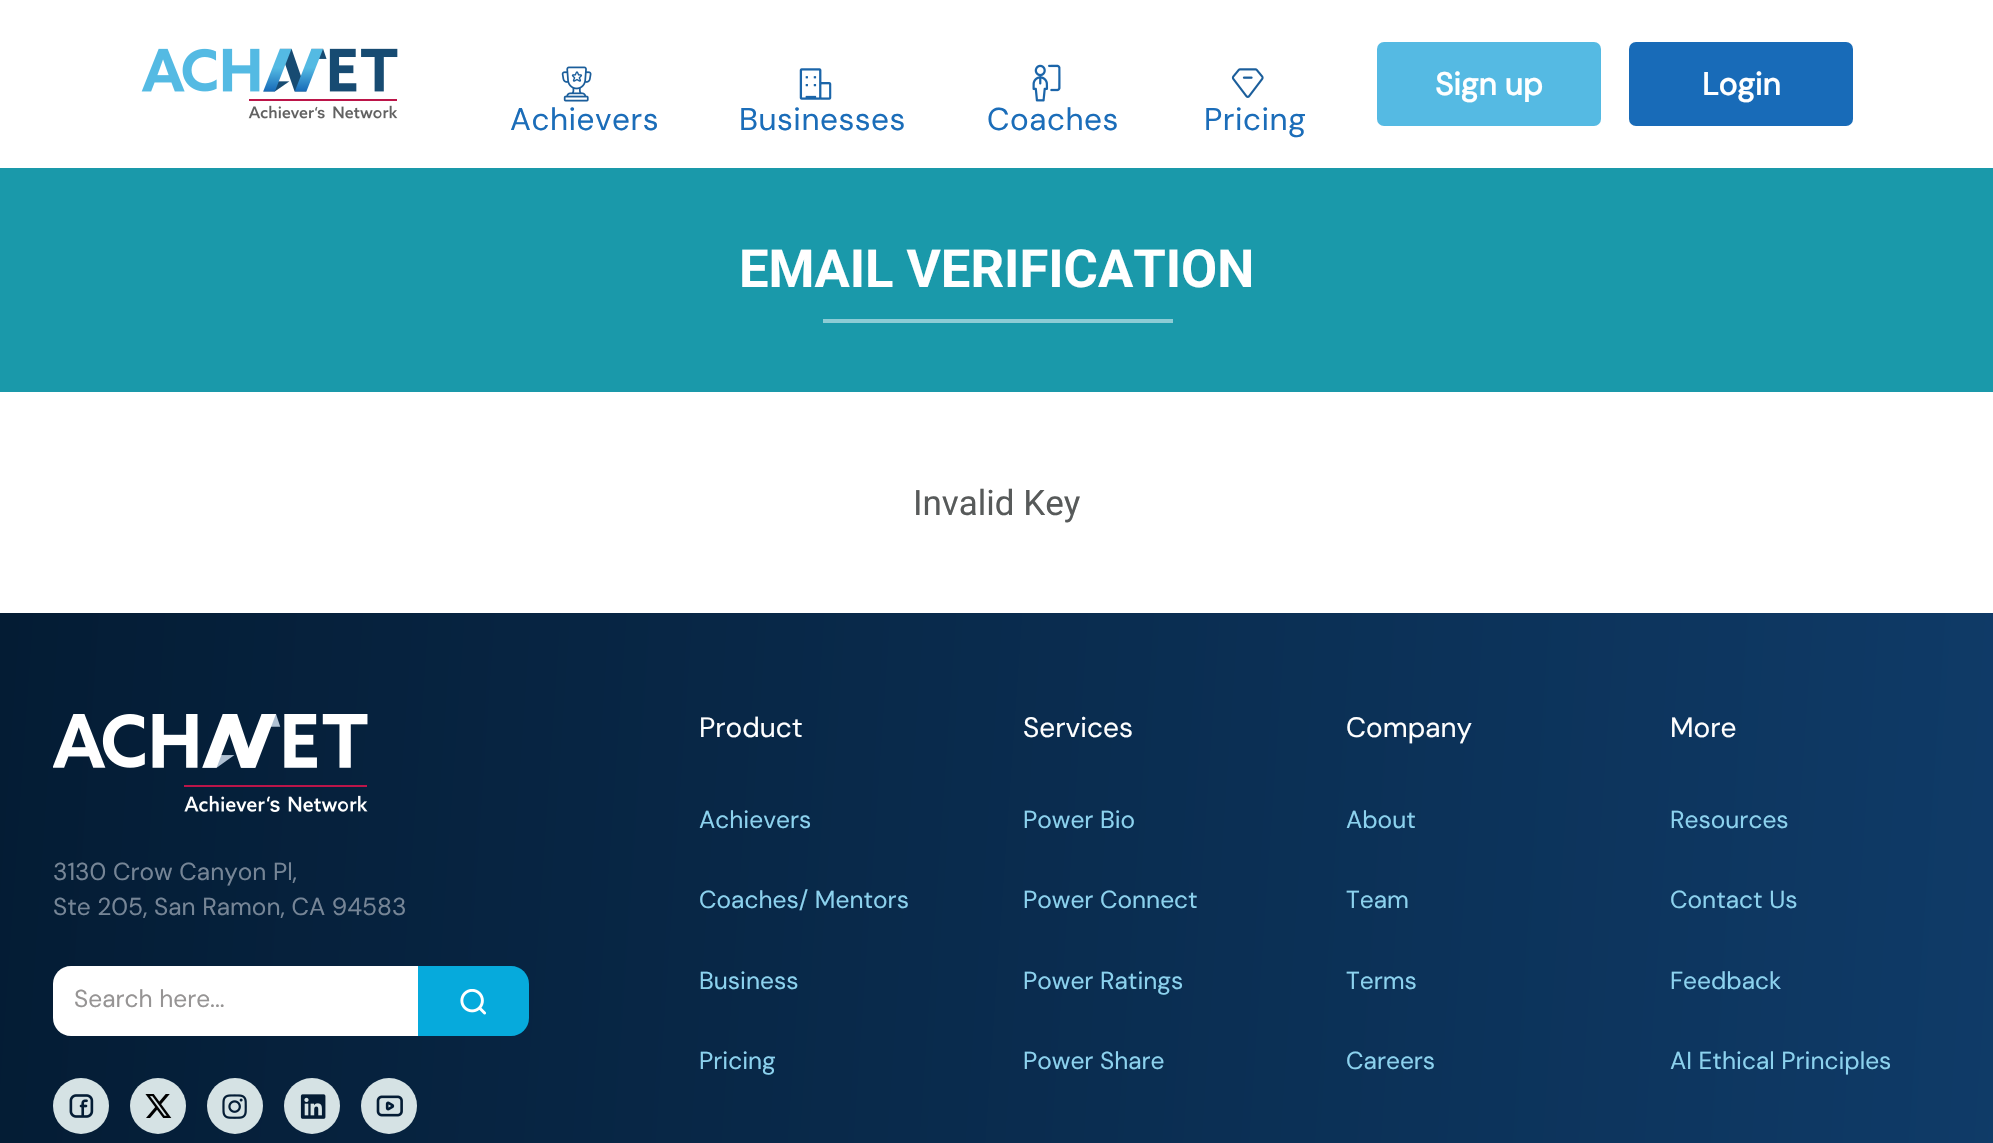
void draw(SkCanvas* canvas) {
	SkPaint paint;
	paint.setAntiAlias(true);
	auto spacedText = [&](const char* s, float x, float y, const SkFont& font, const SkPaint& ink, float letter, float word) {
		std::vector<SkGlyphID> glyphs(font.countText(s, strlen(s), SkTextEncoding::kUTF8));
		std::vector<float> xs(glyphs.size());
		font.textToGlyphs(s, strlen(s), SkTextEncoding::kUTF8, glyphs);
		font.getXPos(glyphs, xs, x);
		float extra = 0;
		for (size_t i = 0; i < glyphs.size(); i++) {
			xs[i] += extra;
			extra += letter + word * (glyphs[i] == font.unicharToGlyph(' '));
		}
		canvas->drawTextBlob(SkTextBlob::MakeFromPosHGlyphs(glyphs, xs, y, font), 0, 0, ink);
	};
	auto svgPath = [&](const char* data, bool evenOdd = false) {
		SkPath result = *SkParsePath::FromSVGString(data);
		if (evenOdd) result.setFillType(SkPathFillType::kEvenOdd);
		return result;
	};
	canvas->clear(0xffffffff);
	canvas->drawImageRect(SkImages::DeferredFromEncodedData(SkData::MakeFromFileName("img1.png")), SkRect::MakeXYWH(141, 48, 257, 71), SkSamplingOptions());
	paint.setColor(0xff55bae3);
	canvas->drawRoundRect(SkRect::MakeXYWH(1377, 42, 224, 84), 7, 7, paint);
	SkFont f1(fontMgr->matchFamilyStyle("DM Sans", SkFontStyle::Bold()), 31.5);
	f1.setSubpixel(true);
	paint.setColor(0xffffffff);
	canvas->drawString("Sign up", 1435, 95, f1, paint);
	paint.setColor(0xff186bb8);
	canvas->drawRoundRect(SkRect::MakeXYWH(1629, 42, 224, 84), 7, 7, paint);
	paint.setColor(0xffffffff);
	canvas->drawString("Login", 1702, 95, f1, paint);
	canvas->drawImageRect(SkImages::DeferredFromEncodedData(SkData::MakeFromFileName("img2.png")), SkRect::MakeXYWH(561, 66, 31, 36), SkSamplingOptions());
	SkFont f2(fontMgr->matchFamilyStyle("DM Sans", SkFontStyle::Normal()), 31.5);
	f2.setSubpixel(true);
	paint.setColor(0xff1b6db9);
	spacedText("Achievers", 510, 130, f2, paint, 0.5, 0);
	canvas->drawImageRect(SkImages::DeferredFromEncodedData(SkData::MakeFromFileName("img3.png")), SkRect::MakeXYWH(799, 68, 33, 32), SkSamplingOptions());
	spacedText("Businesses", 739, 130, f2, paint, 0.5, 0);
	canvas->drawImageRect(SkImages::DeferredFromEncodedData(SkData::MakeFromFileName("img4.png")), SkRect::MakeXYWH(1032, 64, 29, 38), SkSamplingOptions());
	spacedText("Coaches", 987, 130, f2, paint, 0.5, 0);
	canvas->drawImageRect(SkImages::DeferredFromEncodedData(SkData::MakeFromFileName("img5.png")), SkRect::MakeXYWH(1231, 68, 33, 30), SkSamplingOptions());
	spacedText("Pricing", 1204, 130, f2, paint, 0.5, 0);
	paint.setColor(0xff1a99aa);
	canvas->drawRect(SkRect::MakeXYWH(0, 168, 1993, 224), paint);
	SkFont f3(fontMgr->matchFamilyStyle("Roboto", SkFontStyle::Bold()), 52.5);
	f3.setSubpixel(true);
	paint.setColor(0xffffffff);
	canvas->drawString("EMAIL VERIFICATION", 739, 287, f3, paint);
	paint.setColor(0xff8dccd5);
	canvas->drawRect(SkRect::MakeXYWH(823, 319, 350, 4), paint);
	SkFont f4(fontMgr->matchFamilyStyle("Roboto", SkFontStyle::Normal()), 35);
	f4.setSubpixel(true);
	paint.setColor(0xff575a5a);
	canvas->drawString("Invalid Key", 913, 515, f4, paint);
	{
		const SkColor colors[] = {0xff0f3b68, 0xff041c34};
		const float stops[] = {0, 1};
		const SkPoint ends[] = {{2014, 1047}, {-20, 905}};
		paint.setShader(SkGradientShader::MakeLinear(ends, colors, stops, 2, SkTileMode::kClamp));
		paint.setAlpha(255);
	}
	canvas->drawRect(SkRect::MakeXYWH(0, 613, 1993, 530), paint);
	canvas->drawImageRect(SkImages::DeferredFromEncodedData(SkData::MakeFromFileName("img6.png")), SkRect::MakeXYWH(53, 714, 315, 98), SkSamplingOptions());
	SkFont f5(fontMgr->matchFamilyStyle("DM Sans", SkFontStyle::Normal()), 24.5);
	f5.setSubpixel(true);
	paint.setShader(nullptr);
	paint.setColor(0xff768596);
	canvas->drawString("3130 Crow Canyon Pl,", 53, 880, f5, paint);
	canvas->drawString("Ste 205, San Ramon, CA 94583", 53, 915, f5, paint);
	paint.setColor(0xffffffff);
	canvas->drawPath(svgPath("M71 966H418V1036H71C61 1036 53 1028 53 1018V984C53 974 61 966 71 966Z"), paint);
	paint.setColor(0xff969494);
	canvas->drawString("Search here...", 74, 1007, f5, paint);
	paint.setColor(0xff06aadc);
	canvas->drawPath(svgPath("M418 966H511C521 966 529 974 529 984V1018C529 1028 521 1036 511 1036H418Z"), paint);
	canvas->drawImageRect(SkImages::DeferredFromEncodedData(SkData::MakeFromFileName("img7.png")), SkRect::MakeXYWH(460, 989, 26, 26), SkSamplingOptions());
	paint.setColor(0xffd5e2e4);
	canvas->drawCircle(81, 1106, 28, paint);
	canvas->drawImageRect(SkImages::DeferredFromEncodedData(SkData::MakeFromFileName("img8.png")), SkRect::MakeXYWH(69, 1094, 25, 24), SkSamplingOptions());
	canvas->drawCircle(158, 1106, 28, paint);
	canvas->drawImageRect(SkImages::DeferredFromEncodedData(SkData::MakeFromFileName("img9.png")), SkRect::MakeXYWH(145, 1094, 27, 24), SkSamplingOptions());
	canvas->drawCircle(235, 1106, 28, paint);
	canvas->drawImageRect(SkImages::DeferredFromEncodedData(SkData::MakeFromFileName("img10.png")), SkRect::MakeXYWH(222, 1094, 25, 25), SkSamplingOptions());
	canvas->drawCircle(312, 1106, 28, paint);
	canvas->drawImageRect(SkImages::DeferredFromEncodedData(SkData::MakeFromFileName("img11.png")), SkRect::MakeXYWH(300, 1094, 26, 25), SkSamplingOptions());
	canvas->drawCircle(389, 1106, 28, paint);
	canvas->drawImageRect(SkImages::DeferredFromEncodedData(SkData::MakeFromFileName("img12.png")), SkRect::MakeXYWH(376, 1095, 27, 22), SkSamplingOptions());
	SkFont f6(fontMgr->matchFamilyStyle("DM Sans", SkFontStyle::Normal()), 28);
	f6.setSubpixel(true);
	paint.setColor(0xffffffff);
	canvas->drawString("Product", 699, 737, f6, paint);
	paint.setColor(0xff8cd2ee);
	canvas->drawString("Achievers", 699, 828, f5, paint);
	canvas->drawString("Coaches/ Mentors", 699, 908, f5, paint);
	canvas->drawString("Business", 699, 989, f5, paint);
	canvas->drawString("Pricing", 699, 1069, f5, paint);
	paint.setColor(0xffffffff);
	canvas->drawString("Services", 1023, 737, f6, paint);
	paint.setColor(0xff8cd2ee);
	canvas->drawString("Power Bio", 1023, 828, f5, paint);
	canvas->drawString("Power Connect", 1023, 908, f5, paint);
	canvas->drawString("Power Ratings", 1023, 989, f5, paint);
	canvas->drawString("Power Share", 1023, 1069, f5, paint);
	paint.setColor(0xffffffff);
	canvas->drawString("Company", 1346, 737, f6, paint);
	paint.setColor(0xff8cd2ee);
	canvas->drawString("About", 1346, 828, f5, paint);
	canvas->drawString("Team", 1346, 908, f5, paint);
	canvas->drawString("Terms", 1346, 989, f5, paint);
	canvas->drawString("Careers", 1346, 1069, f5, paint);
	paint.setColor(0xffffffff);
	canvas->drawString("More", 1670, 737, f6, paint);
	paint.setColor(0xff8cd2ee);
	canvas->drawString("Resources", 1670, 828, f5, paint);
	canvas->drawString("Contact Us", 1670, 908, f5, paint);
	canvas->drawString("Feedback", 1670, 989, f5, paint);
	canvas->drawString("AI Ethical Principles", 1670, 1069, f5, paint);
}
